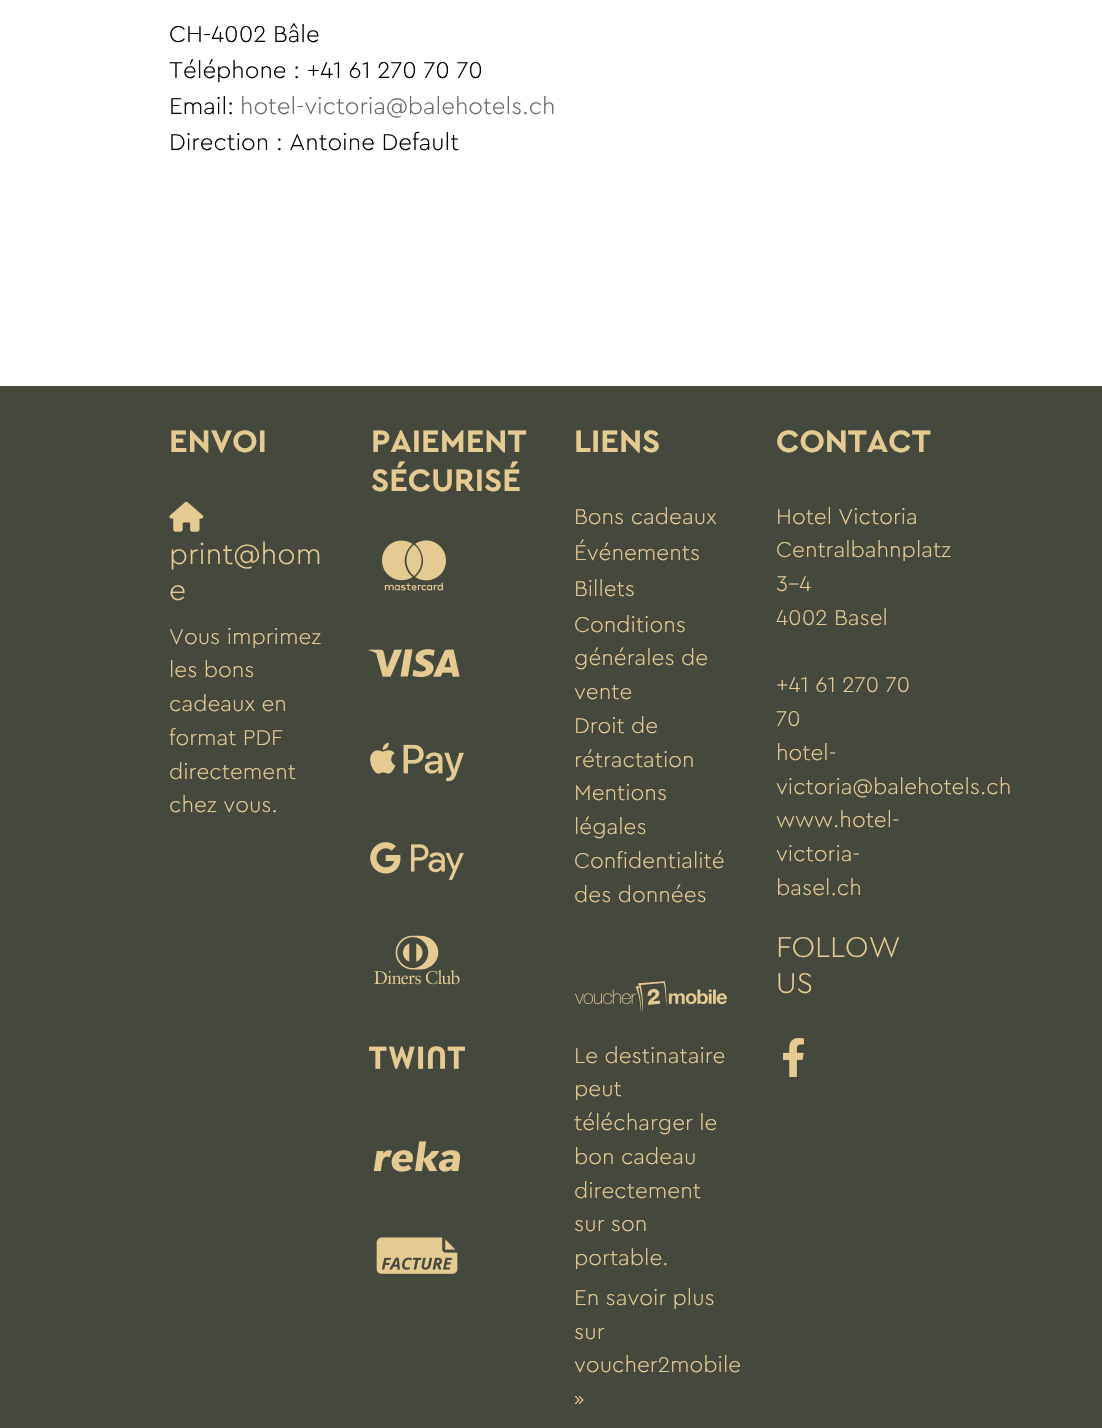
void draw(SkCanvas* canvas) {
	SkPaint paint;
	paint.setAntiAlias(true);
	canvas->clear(0xffffffff);
	SkFont f1(fontMgr->matchFamilyStyle("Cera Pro", SkFontStyle(300, SkFontStyle::kNormal_Width, SkFontStyle::kUpright_Slant)), 24);
	f1.setSubpixel(true);
	paint.setColor(0xff000000);
	canvas->drawString("CH-4002 Bâle", 169, 42, f1, paint);
	canvas->drawString("Téléphone : +41 61 270 70 70", 169, 78, f1, paint);
	canvas->drawString("Email:", 169, 114, f1, paint);
	paint.setColor(0xff666666);
	canvas->drawString("hotel-victoria@balehotels.ch", 240, 114, f1, paint);
	paint.setColor(0xff000000);
	canvas->drawString("Direction : Antoine Default", 169, 150, f1, paint);
	paint.setColor(0xff45483d);
	canvas->drawRect(SkRect::MakeXYWH(0, 386, 1102, 1042), paint);
	SkFont f2(fontMgr->matchFamilyStyle("Cera Pro", SkFontStyle::Bold()), 32.5);
	f2.setSubpixel(true);
	paint.setColor(0xffe5cb92);
	canvas->drawString("ENVOI", 169, 452, f2, paint);
	canvas->drawImageRect(SkImages::DeferredFromEncodedData(SkData::MakeFromFileName("img1.png")), SkRect::MakeXYWH(169, 501, 35, 31), SkSamplingOptions());
	SkFont f3(fontMgr->matchFamilyStyle("Cera Pro", SkFontStyle(300, SkFontStyle::kNormal_Width, SkFontStyle::kUpright_Slant)), 30);
	f3.setSubpixel(true);
	canvas->drawString("print@hom", 169, 564, f3, paint);
	canvas->drawString("e", 169, 600, f3, paint);
	SkFont f4(fontMgr->matchFamilyStyle("Cera Pro", SkFontStyle(300, SkFontStyle::kNormal_Width, SkFontStyle::kUpright_Slant)), 22.5);
	f4.setSubpixel(true);
	canvas->drawString("Vous imprimez", 169, 644, f4, paint);
	canvas->drawString("les bons", 169, 677, f4, paint);
	canvas->drawString("cadeaux en", 169, 711, f4, paint);
	canvas->drawString("format PDF", 169, 745, f4, paint);
	canvas->drawString("directement", 169, 779, f4, paint);
	canvas->drawString("chez vous.", 169, 812, f4, paint);
	canvas->drawString("PAIEMENT", 371, 452, f2, paint);
	canvas->drawString("SÉCURISÉ", 371, 491, f2, paint);
	canvas->drawImageRect(SkImages::DeferredFromEncodedData(SkData::MakeFromFileName("img2.png")), SkRect::MakeXYWH(382, 540, 64, 51), SkSamplingOptions());
	canvas->drawImageRect(SkImages::DeferredFromEncodedData(SkData::MakeFromFileName("img3.png")), SkRect::MakeXYWH(368, 649, 92, 29), SkSamplingOptions());
	canvas->drawImageRect(SkImages::DeferredFromEncodedData(SkData::MakeFromFileName("img4.png")), SkRect::MakeXYWH(370, 742, 94, 40), SkSamplingOptions());
	canvas->drawImageRect(SkImages::DeferredFromEncodedData(SkData::MakeFromFileName("img5.png")), SkRect::MakeXYWH(370, 842, 94, 38), SkSamplingOptions());
	canvas->drawImageRect(SkImages::DeferredFromEncodedData(SkData::MakeFromFileName("img6.png")), SkRect::MakeXYWH(374, 935, 86, 50), SkSamplingOptions());
	canvas->drawImageRect(SkImages::DeferredFromEncodedData(SkData::MakeFromFileName("img7.png")), SkRect::MakeXYWH(369, 1046, 96, 23), SkSamplingOptions());
	canvas->drawImageRect(SkImages::DeferredFromEncodedData(SkData::MakeFromFileName("img8.png")), SkRect::MakeXYWH(373, 1141, 88, 31), SkSamplingOptions());
	canvas->drawImageRect(SkImages::DeferredFromEncodedData(SkData::MakeFromFileName("img9.png")), SkRect::MakeXYWH(376, 1237, 82, 37), SkSamplingOptions());
	canvas->drawString("LIENS", 574, 452, f2, paint);
	canvas->drawString("Bons cadeaux", 574, 524, f4, paint);
	canvas->drawString("Événements", 574, 560, f4, paint);
	canvas->drawString("Billets", 574, 596, f4, paint);
	canvas->drawString("Conditions", 574, 632, f4, paint);
	canvas->drawString("générales de", 574, 665, f4, paint);
	canvas->drawString("vente", 574, 699, f4, paint);
	canvas->drawString("Droit de", 574, 733, f4, paint);
	canvas->drawString("rétractation", 574, 767, f4, paint);
	canvas->drawString("Mentions", 574, 800, f4, paint);
	canvas->drawString("légales", 574, 834, f4, paint);
	canvas->drawString("Confidentialité", 574, 868, f4, paint);
	canvas->drawString("des données", 574, 902, f4, paint);
	canvas->drawImageRect(SkImages::DeferredFromEncodedData(SkData::MakeFromFileName("img10.png")), SkRect::MakeXYWH(575, 981, 152, 32), SkSamplingOptions());
	canvas->drawString("Le destinataire", 574, 1063, f4, paint);
	canvas->drawString("peut", 574, 1096, f4, paint);
	canvas->drawString("télécharger le", 574, 1130, f4, paint);
	canvas->drawString("bon cadeau", 574, 1164, f4, paint);
	canvas->drawString("directement", 574, 1198, f4, paint);
	canvas->drawString("sur son", 574, 1231, f4, paint);
	canvas->drawString("portable.", 574, 1265, f4, paint);
	canvas->drawString("En savoir plus", 574, 1305, f4, paint);
	canvas->drawString("sur", 574, 1339, f4, paint);
	canvas->drawString("voucher2mobile", 574, 1372, f4, paint);
	canvas->drawString("»", 574, 1406, f4, paint);
	canvas->drawString("CONTACT", 776, 452, f2, paint);
	canvas->drawString("Hotel Victoria", 776, 524, f4, paint);
	canvas->drawString("Centralbahnplatz", 776, 557, f4, paint);
	canvas->drawString("3–4", 776, 591, f4, paint);
	canvas->drawString("4002 Basel", 776, 625, f4, paint);
	canvas->drawString("+41 61 270 70", 776, 692, f4, paint);
	canvas->drawString("70", 776, 726, f4, paint);
	canvas->drawString("hotel-", 776, 760, f4, paint);
	canvas->drawString("victoria@balehotels.ch", 776, 794, f4, paint);
	canvas->drawString("www.hotel-", 776, 827, f4, paint);
	canvas->drawString("victoria-", 776, 861, f4, paint);
	canvas->drawString("basel.ch", 776, 895, f4, paint);
	canvas->drawString("FOLLOW", 776, 957, f3, paint);
	canvas->drawString("US", 776, 993, f3, paint);
	canvas->drawImageRect(SkImages::DeferredFromEncodedData(SkData::MakeFromFileName("img11.png")), SkRect::MakeXYWH(783, 1038, 21, 39), SkSamplingOptions());
}
